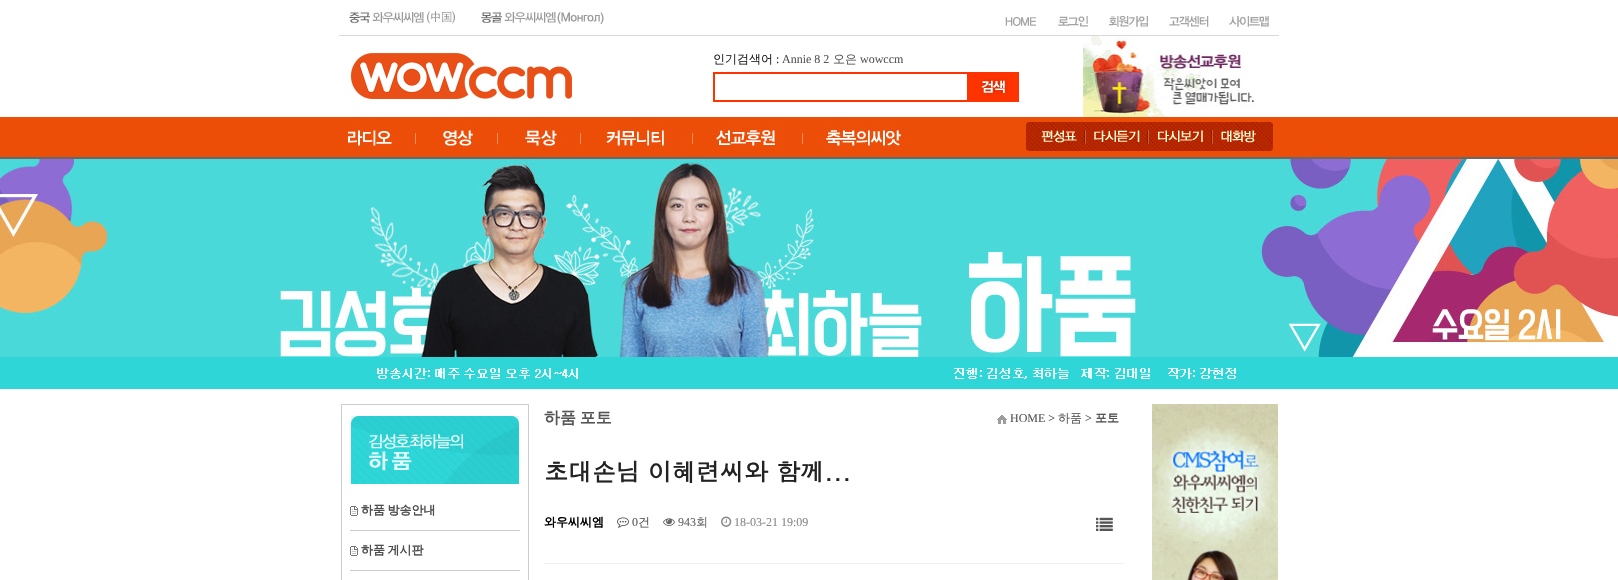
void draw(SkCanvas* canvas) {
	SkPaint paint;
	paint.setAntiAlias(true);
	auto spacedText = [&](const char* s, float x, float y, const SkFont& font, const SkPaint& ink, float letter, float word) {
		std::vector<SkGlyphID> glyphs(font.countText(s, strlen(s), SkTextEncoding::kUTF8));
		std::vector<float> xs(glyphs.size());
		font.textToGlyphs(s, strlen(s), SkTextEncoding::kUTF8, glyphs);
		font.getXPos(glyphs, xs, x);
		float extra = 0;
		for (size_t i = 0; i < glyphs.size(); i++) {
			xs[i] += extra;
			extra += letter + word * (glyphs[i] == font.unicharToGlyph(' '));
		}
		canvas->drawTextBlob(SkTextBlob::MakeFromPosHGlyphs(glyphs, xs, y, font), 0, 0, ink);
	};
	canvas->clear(0xffffffff);
	canvas->drawImageRect(SkImages::DeferredFromEncodedData(SkData::MakeFromFileName("img1.png")), SkRect::MakeXYWH(349, 11, 106, 13), SkSamplingOptions());
	canvas->drawImageRect(SkImages::DeferredFromEncodedData(SkData::MakeFromFileName("img2.png")), SkRect::MakeXYWH(481, 12, 123, 12), SkSamplingOptions());
	paint.setColor(0xffd9d9d9);
	canvas->drawRect(SkRect::MakeXYWH(339, 35, 940, 1), paint);
	canvas->drawImageRect(SkImages::DeferredFromEncodedData(SkData::MakeFromFileName("img3.png")), SkRect::MakeXYWH(1005, 17, 31, 9), SkSamplingOptions());
	canvas->drawImageRect(SkImages::DeferredFromEncodedData(SkData::MakeFromFileName("img4.png")), SkRect::MakeXYWH(1058, 16, 30, 11), SkSamplingOptions());
	canvas->drawImageRect(SkImages::DeferredFromEncodedData(SkData::MakeFromFileName("img5.png")), SkRect::MakeXYWH(1109, 16, 39, 11), SkSamplingOptions());
	canvas->drawImageRect(SkImages::DeferredFromEncodedData(SkData::MakeFromFileName("img6.png")), SkRect::MakeXYWH(1169, 16, 40, 11), SkSamplingOptions());
	canvas->drawImageRect(SkImages::DeferredFromEncodedData(SkData::MakeFromFileName("img7.png")), SkRect::MakeXYWH(1229, 16, 40, 11), SkSamplingOptions());
	canvas->drawImageRect(SkImages::DeferredFromEncodedData(SkData::MakeFromFileName("img8.png")), SkRect::MakeXYWH(351, 53, 221, 46), SkSamplingOptions());
	SkFont f1(fontMgr->matchFamilyStyle("WenQuanYi Zen Hei", SkFontStyle(500, SkFontStyle::kNormal_Width, SkFontStyle::kUpright_Slant)), 12);
	f1.setSubpixel(true);
	paint.setColor(0xff222222);
	canvas->drawString("인기검색어", 713, 63, f1, paint);
	SkFont f2(fontMgr->matchFamilyStyle("Liberation Serif", SkFontStyle::Normal()), 12);
	f2.setSubpixel(true);
	canvas->drawString(":", 776, 63, f2, paint);
	paint.setColor(0xff555555);
	canvas->drawString("Annie 8 2", 782, 63, f2, paint);
	canvas->drawString("오은", 833, 63, f1, paint);
	canvas->drawString("wowccm", 860, 63, f2, paint);
	paint.setStroke(true);
	paint.setStrokeWidth(1);
	paint.setColor(0xffff3300);
	canvas->drawRect(SkRect::MakeXYWH(713.5, 72.5, 255, 29), paint);
	canvas->drawRect(SkRect::MakeXYWH(714.5, 73.5, 253, 27), paint);
	canvas->drawImageRect(SkImages::DeferredFromEncodedData(SkData::MakeFromFileName("img9.png")), SkRect::MakeXYWH(969, 72, 50, 30), SkSamplingOptions());
	canvas->drawImageRect(SkImages::DeferredFromEncodedData(SkData::MakeFromFileName("img10.png")), SkRect::MakeXYWH(1083, 36, 176, 81), SkSamplingOptions());
	canvas->drawImageRect(SkImages::DeferredFromEncodedData(SkData::MakeFromFileName("img11.png")), SkRect::MakeXYWH(0, 117, 1618, 42), SkSamplingOptions());
	canvas->drawImageRect(SkImages::DeferredFromEncodedData(SkData::MakeFromFileName("img12.png")), SkRect::MakeXYWH(346, 125, 70, 24), SkSamplingOptions());
	canvas->drawImageRect(SkImages::DeferredFromEncodedData(SkData::MakeFromFileName("img13.png")), SkRect::MakeXYWH(440, 125, 59, 24), SkSamplingOptions());
	canvas->drawImageRect(SkImages::DeferredFromEncodedData(SkData::MakeFromFileName("img14.png")), SkRect::MakeXYWH(523, 125, 59, 24), SkSamplingOptions());
	canvas->drawImageRect(SkImages::DeferredFromEncodedData(SkData::MakeFromFileName("img15.png")), SkRect::MakeXYWH(606, 125, 87, 24), SkSamplingOptions());
	canvas->drawImageRect(SkImages::DeferredFromEncodedData(SkData::MakeFromFileName("img16.png")), SkRect::MakeXYWH(709, 125, 95, 24), SkSamplingOptions());
	canvas->drawImageRect(SkImages::DeferredFromEncodedData(SkData::MakeFromFileName("img17.png")), SkRect::MakeXYWH(820, 125, 88, 24), SkSamplingOptions());
	canvas->drawImageRect(SkImages::DeferredFromEncodedData(SkData::MakeFromFileName("img18.png")), SkRect::MakeXYWH(1026, 122, 59, 29), SkSamplingOptions());
	canvas->drawImageRect(SkImages::DeferredFromEncodedData(SkData::MakeFromFileName("img19.png")), SkRect::MakeXYWH(1085, 122, 64, 29), SkSamplingOptions());
	canvas->drawImageRect(SkImages::DeferredFromEncodedData(SkData::MakeFromFileName("img20.png")), SkRect::MakeXYWH(1149, 122, 64, 29), SkSamplingOptions());
	canvas->drawImageRect(SkImages::DeferredFromEncodedData(SkData::MakeFromFileName("img21.png")), SkRect::MakeXYWH(1213, 122, 60, 29), SkSamplingOptions());
	canvas->drawImageRect(SkImages::DeferredFromEncodedData(SkData::MakeFromFileName("img22.png")), SkRect::MakeXYWH(0, 159, 1618, 198), SkSamplingOptions());
	paint.setStroke(false);
	paint.setColor(0xff2ed6d8);
	canvas->drawRect(SkRect::MakeXYWH(0, 357, 1618, 32), paint);
	canvas->drawImageRect(SkImages::DeferredFromEncodedData(SkData::MakeFromFileName("img23.png")), SkRect::MakeXYWH(373, 365, 864, 16), SkSamplingOptions());
	paint.setColor(0xffcccccc);
	canvas->drawRect(SkRect::MakeXYWH(341, 404, 188, 1), paint);
	canvas->drawRect(SkRect::MakeXYWH(528, 484, 1, 96), paint);
	canvas->drawRect(SkRect::MakeXYWH(528, 404, 1, 81), paint);
	canvas->drawRect(SkRect::MakeXYWH(341, 484, 1, 96), paint);
	canvas->drawRect(SkRect::MakeXYWH(341, 404, 1, 81), paint);
	canvas->drawImageRect(SkImages::DeferredFromEncodedData(SkData::MakeFromFileName("img24.png")), SkRect::MakeXYWH(351, 416, 168, 68), SkSamplingOptions());
	canvas->drawRect(SkRect::MakeXYWH(350, 530, 170, 1), paint);
	canvas->drawImageRect(SkImages::DeferredFromEncodedData(SkData::MakeFromFileName("img25.png")), SkRect::MakeXYWH(350, 506, 8, 10), SkSamplingOptions());
	SkFont f3(fontMgr->matchFamilyStyle("WenQuanYi Zen Hei", SkFontStyle::Bold()), 12);
	f3.setSubpixel(true);
	paint.setColor(0xff4c4c4c);
	spacedText("하품 방송안내", 361, 514, f3, paint, 0, -1);
	paint.setColor(0xffcccccc);
	canvas->drawRect(SkRect::MakeXYWH(350, 570, 170, 1), paint);
	canvas->drawImageRect(SkImages::DeferredFromEncodedData(SkData::MakeFromFileName("img25.png")), SkRect::MakeXYWH(350, 546, 8, 10), SkSamplingOptions());
	paint.setColor(0xff4c4c4c);
	spacedText("하품 게시판", 361, 554, f3, paint, 0, -1);
	SkFont f4(fontMgr->matchFamilyStyle("WenQuanYi Zen Hei", SkFontStyle::Bold()), 16);
	f4.setSubpixel(true);
	paint.setColor(0xff555555);
	spacedText("하품 포토", 544, 423, f4, paint, 0, -1);
	canvas->drawImageRect(SkImages::DeferredFromEncodedData(SkData::MakeFromFileName("img26.png")), SkRect::MakeXYWH(997, 415, 10, 9), SkSamplingOptions());
	canvas->drawString("HOME >", 1010, 422, f2, paint);
	canvas->drawString("하품", 1058, 422, f1, paint);
	canvas->drawString(">", 1085, 422, f2, paint);
	canvas->drawString("포토", 1095, 422, f3, paint);
	SkFont f5(fontMgr->matchFamilyStyle("Dotum", SkFontStyle::Bold()), 24);
	f5.setSubpixel(true);
	paint.setColor(0xff222222);
	canvas->drawString("초대손님 이혜련씨와 함께...", 544, 481, f5, paint);
	paint.setColor(0xfff1f1f1);
	canvas->drawRect(SkRect::MakeXYWH(544, 563, 581, 1), paint);
	paint.setColor(0xff000000);
	canvas->drawString("와우씨씨엠", 544, 526, f3, paint);
	canvas->drawImageRect(SkImages::DeferredFromEncodedData(SkData::MakeFromFileName("img27.png")), SkRect::MakeXYWH(617, 517, 12, 11), SkSamplingOptions());
	paint.setColor(0xff555555);
	canvas->drawString("0", 632, 526, f2, paint);
	canvas->drawString("건", 638, 526, f1, paint);
	canvas->drawImageRect(SkImages::DeferredFromEncodedData(SkData::MakeFromFileName("img28.png")), SkRect::MakeXYWH(663, 518, 12, 8), SkSamplingOptions());
	paint.setColor(0xff666666);
	canvas->drawString("943", 678, 526, f2, paint);
	canvas->drawString("회", 696, 526, f1, paint);
	canvas->drawImageRect(SkImages::DeferredFromEncodedData(SkData::MakeFromFileName("img29.png")), SkRect::MakeXYWH(721, 516, 11, 11), SkSamplingOptions());
	paint.setColor(0xff888888);
	canvas->drawString("18-03-21 19:09", 734, 526, f2, paint);
	canvas->drawImageRect(SkImages::DeferredFromEncodedData(SkData::MakeFromFileName("img30.png")), SkRect::MakeXYWH(1096, 517, 17, 14), SkSamplingOptions());
	canvas->drawImageRect(SkImages::DeferredFromEncodedData(SkData::MakeFromFileName("img31.png")), SkRect::MakeXYWH(1152, 404, 126, 176), SkSamplingOptions());
}
